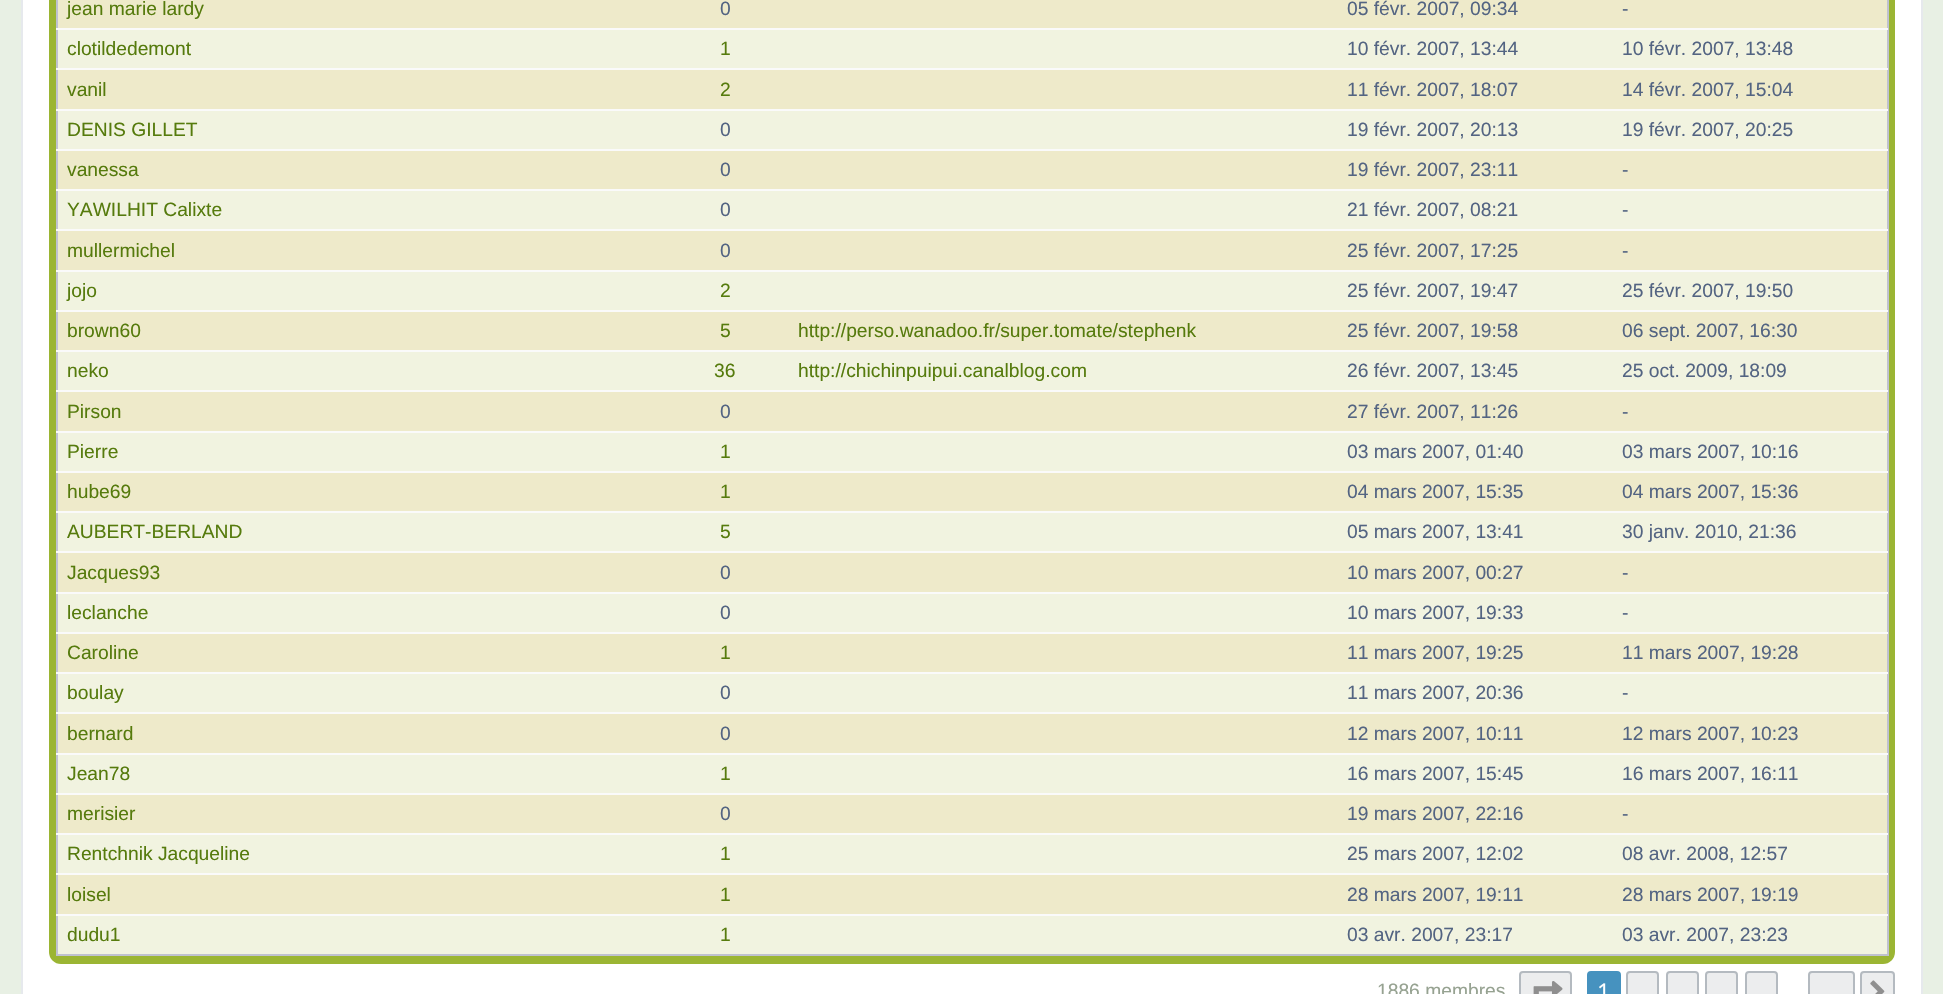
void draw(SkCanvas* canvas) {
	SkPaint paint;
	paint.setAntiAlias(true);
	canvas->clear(0xffe8f0e4);
	paint.setColor(0xffffffff);
	canvas->drawRect(SkRect::MakeXYWH(22, -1, 1900, 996), paint);
	paint.setStroke(true);
	paint.setStrokeWidth(2);
	paint.setColor(0xffe6e9ed);
	canvas->drawRect(SkRect::MakeXYWH(22, -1, 1900, 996), paint);
	paint.setStroke(false);
	{
		const SkColor colors[] = {0xff669966, 0xff336633, 0xff9bb533, 0xff9bb533};
		const float stops[] = {0, 0, 0.08, 1};
		const SkPoint ends[] = {{972, -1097}, {972, 964}};
		paint.setShader(SkGradientShader::MakeLinear(ends, colors, stops, 4, SkTileMode::kClamp));
		paint.setAlpha(255);
	}
	canvas->drawRoundRect(SkRect::MakeXYWH(49, -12, 1846, 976), 12, 12, paint);
	paint.setShader(nullptr);
	paint.setColor(0xffeeeaca);
	canvas->drawRect(SkRect::MakeXYWH(58, 0, 1829, 28), paint);
	SkFont f1(fontMgr->matchFamilyStyle("Liberation Sans", SkFontStyle::Normal()), 19.25);
	f1.setSubpixel(true);
	paint.setColor(0xff567b0d);
	canvas->drawString("jean marie lardy", 67, 15, f1, paint);
	paint.setColor(0xff536482);
	canvas->drawString("0", 720, 15, f1, paint);
	canvas->drawString("05 févr. 2007, 09:34", 1347, 15, f1, paint);
	canvas->drawString("-", 1622, 15, f1, paint);
	paint.setColor(0xfff1f3e0);
	canvas->drawRect(SkRect::MakeXYWH(58, 30, 1829, 38), paint);
	paint.setColor(0xff567b0d);
	canvas->drawString("clotildedemont", 67, 55, f1, paint);
	canvas->drawString("1", 720, 55, f1, paint);
	paint.setColor(0xff536482);
	canvas->drawString("10 févr. 2007, 13:44", 1347, 55, f1, paint);
	paint.setColor(0xffbfc1cf);
	canvas->drawRect(SkRect::MakeXYWH(1887, 0, 2, 956), paint);
	canvas->drawRect(SkRect::MakeXYWH(56, 954, 1832, 2), paint);
	canvas->drawRect(SkRect::MakeXYWH(56, 0, 2, 956), paint);
	paint.setColor(0xfffafafa);
	canvas->drawRect(SkRect::MakeXYWH(56, 28, 1832, 2), paint);
	paint.setColor(0xff536482);
	canvas->drawString("10 févr. 2007, 13:48", 1622, 55, f1, paint);
	paint.setColor(0xffeeeaca);
	canvas->drawRect(SkRect::MakeXYWH(58, 70, 1829, 39), paint);
	paint.setColor(0xff567b0d);
	canvas->drawString("vanil", 67, 96, f1, paint);
	canvas->drawString("2", 720, 96, f1, paint);
	paint.setColor(0xff536482);
	canvas->drawString("11 févr. 2007, 18:07", 1347, 96, f1, paint);
	paint.setColor(0xfffafafa);
	canvas->drawRect(SkRect::MakeXYWH(56, 68, 1832, 2), paint);
	paint.setColor(0xff536482);
	canvas->drawString("14 févr. 2007, 15:04", 1622, 96, f1, paint);
	paint.setColor(0xfff1f3e0);
	canvas->drawRect(SkRect::MakeXYWH(58, 111, 1829, 38), paint);
	paint.setColor(0xff567b0d);
	canvas->drawString("DENIS GILLET", 67, 136, f1, paint);
	paint.setColor(0xff536482);
	canvas->drawString("0", 720, 136, f1, paint);
	canvas->drawString("19 févr. 2007, 20:13", 1347, 136, f1, paint);
	paint.setColor(0xfffafafa);
	canvas->drawRect(SkRect::MakeXYWH(56, 109, 1832, 2), paint);
	paint.setColor(0xff536482);
	canvas->drawString("19 févr. 2007, 20:25", 1622, 136, f1, paint);
	paint.setColor(0xffeeeaca);
	canvas->drawRect(SkRect::MakeXYWH(58, 151, 1829, 38), paint);
	paint.setColor(0xff567b0d);
	canvas->drawString("vanessa", 67, 176, f1, paint);
	paint.setColor(0xff536482);
	canvas->drawString("0", 720, 176, f1, paint);
	canvas->drawString("19 févr. 2007, 23:11", 1347, 176, f1, paint);
	paint.setColor(0xfffafafa);
	canvas->drawRect(SkRect::MakeXYWH(56, 149, 1832, 2), paint);
	paint.setColor(0xff536482);
	canvas->drawString("-", 1622, 176, f1, paint);
	paint.setColor(0xfff1f3e0);
	canvas->drawRect(SkRect::MakeXYWH(58, 191, 1829, 38), paint);
	paint.setColor(0xff567b0d);
	canvas->drawString("YAWILHIT Calixte", 67, 216, f1, paint);
	paint.setColor(0xff536482);
	canvas->drawString("0", 720, 216, f1, paint);
	canvas->drawString("21 févr. 2007, 08:21", 1347, 216, f1, paint);
	paint.setColor(0xfffafafa);
	canvas->drawRect(SkRect::MakeXYWH(56, 189, 1832, 2), paint);
	paint.setColor(0xff536482);
	canvas->drawString("-", 1622, 216, f1, paint);
	paint.setColor(0xffeeeaca);
	canvas->drawRect(SkRect::MakeXYWH(58, 231, 1829, 39), paint);
	paint.setColor(0xff567b0d);
	canvas->drawString("mullermichel", 67, 257, f1, paint);
	paint.setColor(0xff536482);
	canvas->drawString("0", 720, 257, f1, paint);
	canvas->drawString("25 févr. 2007, 17:25", 1347, 257, f1, paint);
	paint.setColor(0xfffafafa);
	canvas->drawRect(SkRect::MakeXYWH(56, 229, 1832, 2), paint);
	paint.setColor(0xff536482);
	canvas->drawString("-", 1622, 257, f1, paint);
	paint.setColor(0xfff1f3e0);
	canvas->drawRect(SkRect::MakeXYWH(58, 272, 1829, 38), paint);
	paint.setColor(0xff567b0d);
	canvas->drawString("jojo", 67, 297, f1, paint);
	canvas->drawString("2", 720, 297, f1, paint);
	paint.setColor(0xff536482);
	canvas->drawString("25 févr. 2007, 19:47", 1347, 297, f1, paint);
	paint.setColor(0xfffafafa);
	canvas->drawRect(SkRect::MakeXYWH(56, 270, 1832, 2), paint);
	paint.setColor(0xff536482);
	canvas->drawString("25 févr. 2007, 19:50", 1622, 297, f1, paint);
	paint.setColor(0xffeeeaca);
	canvas->drawRect(SkRect::MakeXYWH(58, 312, 1829, 38), paint);
	paint.setColor(0xff567b0d);
	canvas->drawString("brown60", 67, 337, f1, paint);
	canvas->drawString("5", 720, 337, f1, paint);
	canvas->drawString("http://perso.wanadoo.fr/super.tomate/stephenk", 798, 337, f1, paint);
	paint.setColor(0xff536482);
	canvas->drawString("25 févr. 2007, 19:58", 1347, 337, f1, paint);
	paint.setColor(0xfffafafa);
	canvas->drawRect(SkRect::MakeXYWH(56, 310, 1832, 2), paint);
	paint.setColor(0xff536482);
	canvas->drawString("06 sept. 2007, 16:30", 1622, 337, f1, paint);
	paint.setColor(0xfff1f3e0);
	canvas->drawRect(SkRect::MakeXYWH(58, 352, 1829, 38), paint);
	paint.setColor(0xff567b0d);
	canvas->drawString("neko", 67, 377, f1, paint);
	canvas->drawString("36", 714, 377, f1, paint);
	canvas->drawString("http://chichinpuipui.canalblog.com", 798, 377, f1, paint);
	paint.setColor(0xff536482);
	canvas->drawString("26 févr. 2007, 13:45", 1347, 377, f1, paint);
	paint.setColor(0xfffafafa);
	canvas->drawRect(SkRect::MakeXYWH(56, 350, 1832, 2), paint);
	paint.setColor(0xff536482);
	canvas->drawString("25 oct. 2009, 18:09", 1622, 377, f1, paint);
	paint.setColor(0xffeeeaca);
	canvas->drawRect(SkRect::MakeXYWH(58, 392, 1829, 39), paint);
	paint.setColor(0xff567b0d);
	canvas->drawString("Pirson", 67, 418, f1, paint);
	paint.setColor(0xff536482);
	canvas->drawString("0", 720, 418, f1, paint);
	canvas->drawString("27 févr. 2007, 11:26", 1347, 418, f1, paint);
	paint.setColor(0xfffafafa);
	canvas->drawRect(SkRect::MakeXYWH(56, 390, 1832, 2), paint);
	paint.setColor(0xff536482);
	canvas->drawString("-", 1622, 418, f1, paint);
	paint.setColor(0xfff1f3e0);
	canvas->drawRect(SkRect::MakeXYWH(58, 433, 1829, 38), paint);
	paint.setColor(0xff567b0d);
	canvas->drawString("Pierre", 67, 458, f1, paint);
	canvas->drawString("1", 720, 458, f1, paint);
	paint.setColor(0xff536482);
	canvas->drawString("03 mars 2007, 01:40", 1347, 458, f1, paint);
	paint.setColor(0xfffafafa);
	canvas->drawRect(SkRect::MakeXYWH(56, 431, 1832, 2), paint);
	paint.setColor(0xff536482);
	canvas->drawString("03 mars 2007, 10:16", 1622, 458, f1, paint);
	paint.setColor(0xffeeeaca);
	canvas->drawRect(SkRect::MakeXYWH(58, 473, 1829, 38), paint);
	paint.setColor(0xff567b0d);
	canvas->drawString("hube69", 67, 498, f1, paint);
	canvas->drawString("1", 720, 498, f1, paint);
	paint.setColor(0xff536482);
	canvas->drawString("04 mars 2007, 15:35", 1347, 498, f1, paint);
	paint.setColor(0xfffafafa);
	canvas->drawRect(SkRect::MakeXYWH(56, 471, 1832, 2), paint);
	paint.setColor(0xff536482);
	canvas->drawString("04 mars 2007, 15:36", 1622, 498, f1, paint);
	paint.setColor(0xfff1f3e0);
	canvas->drawRect(SkRect::MakeXYWH(58, 513, 1829, 38), paint);
	paint.setColor(0xff567b0d);
	canvas->drawString("AUBERT-BERLAND", 67, 538, f1, paint);
	canvas->drawString("5", 720, 538, f1, paint);
	paint.setColor(0xff536482);
	canvas->drawString("05 mars 2007, 13:41", 1347, 538, f1, paint);
	paint.setColor(0xfffafafa);
	canvas->drawRect(SkRect::MakeXYWH(56, 511, 1832, 2), paint);
	paint.setColor(0xff536482);
	canvas->drawString("30 janv. 2010, 21:36", 1622, 538, f1, paint);
	paint.setColor(0xffeeeaca);
	canvas->drawRect(SkRect::MakeXYWH(58, 553, 1829, 39), paint);
	paint.setColor(0xff567b0d);
	canvas->drawString("Jacques93", 67, 579, f1, paint);
	paint.setColor(0xff536482);
	canvas->drawString("0", 720, 579, f1, paint);
	canvas->drawString("10 mars 2007, 00:27", 1347, 579, f1, paint);
	paint.setColor(0xfffafafa);
	canvas->drawRect(SkRect::MakeXYWH(56, 551, 1832, 2), paint);
	paint.setColor(0xff536482);
	canvas->drawString("-", 1622, 579, f1, paint);
	paint.setColor(0xfff1f3e0);
	canvas->drawRect(SkRect::MakeXYWH(58, 594, 1829, 38), paint);
	paint.setColor(0xff567b0d);
	canvas->drawString("leclanche", 67, 619, f1, paint);
	paint.setColor(0xff536482);
	canvas->drawString("0", 720, 619, f1, paint);
	canvas->drawString("10 mars 2007, 19:33", 1347, 619, f1, paint);
	paint.setColor(0xfffafafa);
	canvas->drawRect(SkRect::MakeXYWH(56, 592, 1832, 2), paint);
	paint.setColor(0xff536482);
	canvas->drawString("-", 1622, 619, f1, paint);
	paint.setColor(0xffeeeaca);
	canvas->drawRect(SkRect::MakeXYWH(58, 634, 1829, 38), paint);
	paint.setColor(0xff567b0d);
	canvas->drawString("Caroline", 67, 659, f1, paint);
	canvas->drawString("1", 720, 659, f1, paint);
	paint.setColor(0xff536482);
	canvas->drawString("11 mars 2007, 19:25", 1347, 659, f1, paint);
	paint.setColor(0xfffafafa);
	canvas->drawRect(SkRect::MakeXYWH(56, 632, 1832, 2), paint);
	paint.setColor(0xff536482);
	canvas->drawString("11 mars 2007, 19:28", 1622, 659, f1, paint);
	paint.setColor(0xfff1f3e0);
	canvas->drawRect(SkRect::MakeXYWH(58, 674, 1829, 38), paint);
	paint.setColor(0xff567b0d);
	canvas->drawString("boulay", 67, 699, f1, paint);
	paint.setColor(0xff536482);
	canvas->drawString("0", 720, 699, f1, paint);
	canvas->drawString("11 mars 2007, 20:36", 1347, 699, f1, paint);
	paint.setColor(0xfffafafa);
	canvas->drawRect(SkRect::MakeXYWH(56, 672, 1832, 2), paint);
	paint.setColor(0xff536482);
	canvas->drawString("-", 1622, 699, f1, paint);
	paint.setColor(0xffeeeaca);
	canvas->drawRect(SkRect::MakeXYWH(58, 714, 1829, 39), paint);
	paint.setColor(0xff567b0d);
	canvas->drawString("bernard", 67, 740, f1, paint);
	paint.setColor(0xff536482);
	canvas->drawString("0", 720, 740, f1, paint);
	canvas->drawString("12 mars 2007, 10:11", 1347, 740, f1, paint);
	paint.setColor(0xfffafafa);
	canvas->drawRect(SkRect::MakeXYWH(56, 712, 1832, 2), paint);
	paint.setColor(0xff536482);
	canvas->drawString("12 mars 2007, 10:23", 1622, 740, f1, paint);
	paint.setColor(0xfff1f3e0);
	canvas->drawRect(SkRect::MakeXYWH(58, 755, 1829, 38), paint);
	paint.setColor(0xff567b0d);
	canvas->drawString("Jean78", 67, 780, f1, paint);
	canvas->drawString("1", 720, 780, f1, paint);
	paint.setColor(0xff536482);
	canvas->drawString("16 mars 2007, 15:45", 1347, 780, f1, paint);
	paint.setColor(0xfffafafa);
	canvas->drawRect(SkRect::MakeXYWH(56, 753, 1832, 2), paint);
	paint.setColor(0xff536482);
	canvas->drawString("16 mars 2007, 16:11", 1622, 780, f1, paint);
	paint.setColor(0xffeeeaca);
	canvas->drawRect(SkRect::MakeXYWH(58, 795, 1829, 38), paint);
	paint.setColor(0xff567b0d);
	canvas->drawString("merisier", 67, 820, f1, paint);
	paint.setColor(0xff536482);
	canvas->drawString("0", 720, 820, f1, paint);
	canvas->drawString("19 mars 2007, 22:16", 1347, 820, f1, paint);
	paint.setColor(0xfffafafa);
	canvas->drawRect(SkRect::MakeXYWH(56, 793, 1832, 2), paint);
	paint.setColor(0xff536482);
	canvas->drawString("-", 1622, 820, f1, paint);
	paint.setColor(0xfff1f3e0);
	canvas->drawRect(SkRect::MakeXYWH(58, 835, 1829, 38), paint);
	paint.setColor(0xff567b0d);
	canvas->drawString("Rentchnik Jacqueline", 67, 860, f1, paint);
	canvas->drawString("1", 720, 860, f1, paint);
	paint.setColor(0xff536482);
	canvas->drawString("25 mars 2007, 12:02", 1347, 860, f1, paint);
	paint.setColor(0xfffafafa);
	canvas->drawRect(SkRect::MakeXYWH(56, 833, 1832, 2), paint);
	paint.setColor(0xff536482);
	canvas->drawString("08 avr. 2008, 12:57", 1622, 860, f1, paint);
	paint.setColor(0xffeeeaca);
	canvas->drawRect(SkRect::MakeXYWH(58, 875, 1829, 39), paint);
	paint.setColor(0xff567b0d);
	canvas->drawString("loisel", 67, 901, f1, paint);
	canvas->drawString("1", 720, 901, f1, paint);
	paint.setColor(0xff536482);
	canvas->drawString("28 mars 2007, 19:11", 1347, 901, f1, paint);
	paint.setColor(0xfffafafa);
	canvas->drawRect(SkRect::MakeXYWH(56, 873, 1832, 2), paint);
	paint.setColor(0xff536482);
	canvas->drawString("28 mars 2007, 19:19", 1622, 901, f1, paint);
	paint.setColor(0xfff1f3e0);
	canvas->drawRect(SkRect::MakeXYWH(58, 916, 1829, 38), paint);
	paint.setColor(0xff567b0d);
	canvas->drawString("dudu1", 67, 941, f1, paint);
	canvas->drawString("1", 720, 941, f1, paint);
	paint.setColor(0xff536482);
	canvas->drawString("03 avr. 2007, 23:17", 1347, 941, f1, paint);
	paint.setColor(0xfffafafa);
	canvas->drawRect(SkRect::MakeXYWH(56, 914, 1832, 2), paint);
	paint.setColor(0xff536482);
	canvas->drawString("03 avr. 2007, 23:23", 1622, 941, f1, paint);
	paint.setColor(0xff96a291);
	canvas->drawString("1886 membres", 1377, 997, f1, paint);
	paint.setColor(0xffecedee);
	canvas->drawRoundRect(SkRect::MakeXYWH(1520, 972, 51, 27), 3, 3, paint);
	paint.setStroke(true);
	paint.setColor(0xffb4bac0);
	canvas->drawRoundRect(SkRect::MakeXYWH(1520, 972, 51, 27), 3, 3, paint);
	canvas->drawImageRect(SkImages::DeferredFromEncodedData(SkData::MakeFromFileName("img1.png")), SkRect::MakeXYWH(1533, 981, 30, 13), SkSamplingOptions());
	paint.setStroke(false);
	paint.setColor(0xff4692bf);
	canvas->drawRoundRect(SkRect::MakeXYWH(1588, 972, 32, 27), 3, 3, paint);
	paint.setStroke(true);
	canvas->drawRoundRect(SkRect::MakeXYWH(1588, 972, 32, 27), 3, 3, paint);
	SkFont f2(fontMgr->matchFamilyStyle("Open Sans", SkFontStyle::Normal()), 23);
	f2.setSubpixel(true);
	paint.setStroke(false);
	paint.setColor(0xffffffff);
	canvas->drawString("1", 1597, 1000, f2, paint);
	paint.setColor(0xffecedee);
	canvas->drawRoundRect(SkRect::MakeXYWH(1627, 972, 31, 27), 3, 3, paint);
	paint.setStroke(true);
	paint.setColor(0xffb4bac0);
	canvas->drawRoundRect(SkRect::MakeXYWH(1627, 972, 31, 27), 3, 3, paint);
	paint.setStroke(false);
	paint.setColor(0xffecedee);
	canvas->drawRoundRect(SkRect::MakeXYWH(1667, 972, 31, 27), 3, 3, paint);
	paint.setStroke(true);
	paint.setColor(0xffb4bac0);
	canvas->drawRoundRect(SkRect::MakeXYWH(1667, 972, 31, 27), 3, 3, paint);
	paint.setStroke(false);
	paint.setColor(0xffecedee);
	canvas->drawRoundRect(SkRect::MakeXYWH(1706, 972, 31, 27), 3, 3, paint);
	paint.setStroke(true);
	paint.setColor(0xffb4bac0);
	canvas->drawRoundRect(SkRect::MakeXYWH(1706, 972, 31, 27), 3, 3, paint);
	paint.setStroke(false);
	paint.setColor(0xffecedee);
	canvas->drawRoundRect(SkRect::MakeXYWH(1746, 972, 31, 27), 3, 3, paint);
	paint.setStroke(true);
	paint.setColor(0xffb4bac0);
	canvas->drawRoundRect(SkRect::MakeXYWH(1746, 972, 31, 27), 3, 3, paint);
	paint.setStroke(false);
	paint.setColor(0xffecedee);
	canvas->drawRoundRect(SkRect::MakeXYWH(1809, 972, 45, 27), 3, 3, paint);
	paint.setStroke(true);
	paint.setColor(0xffb4bac0);
	canvas->drawRoundRect(SkRect::MakeXYWH(1809, 972, 45, 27), 3, 3, paint);
	paint.setStroke(false);
	paint.setColor(0xffecedee);
	canvas->drawRoundRect(SkRect::MakeXYWH(1861, 972, 33, 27), 3, 3, paint);
	paint.setStroke(true);
	paint.setColor(0xffb4bac0);
	canvas->drawRoundRect(SkRect::MakeXYWH(1861, 972, 33, 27), 3, 3, paint);
	canvas->drawImageRect(SkImages::DeferredFromEncodedData(SkData::MakeFromFileName("img2.png")), SkRect::MakeXYWH(1870, 980, 15, 14), SkSamplingOptions());
}
